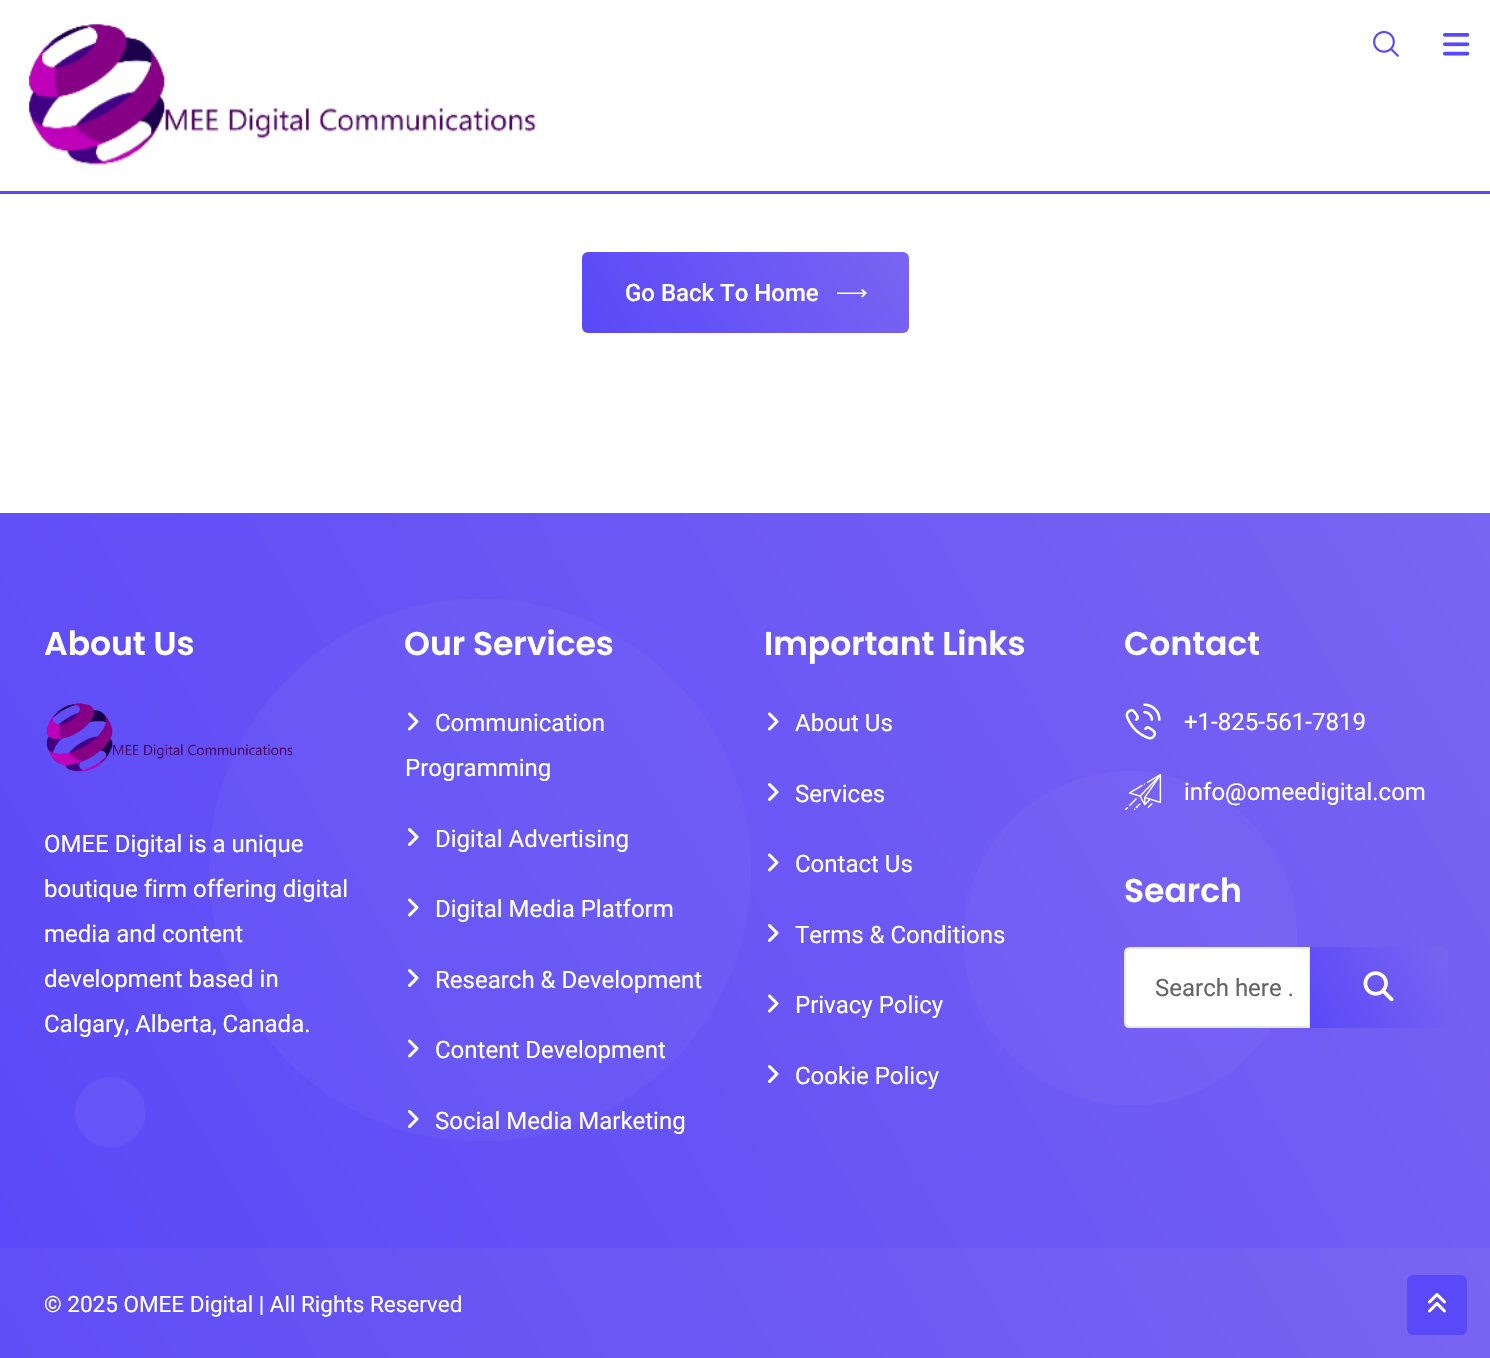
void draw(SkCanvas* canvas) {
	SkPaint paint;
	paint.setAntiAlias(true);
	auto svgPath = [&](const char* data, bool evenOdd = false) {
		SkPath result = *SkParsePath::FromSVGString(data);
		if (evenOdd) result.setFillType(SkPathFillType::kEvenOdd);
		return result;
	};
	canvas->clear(0xffffffff);
	paint.setColor(0xff5a49f8);
	canvas->drawRect(SkRect::MakeXYWH(0, 191, 1490, 3), paint);
	canvas->drawImageRect(SkImages::DeferredFromEncodedData(SkData::MakeFromFileName("img1.png")), SkRect::MakeXYWH(28, 24, 508, 141), SkSamplingOptions());
	canvas->drawImageRect(SkImages::DeferredFromEncodedData(SkData::MakeFromFileName("img2.png")), SkRect::MakeXYWH(1373, 31, 26, 26), SkSamplingOptions());
	canvas->drawImageRect(SkImages::DeferredFromEncodedData(SkData::MakeFromFileName("img3.png")), SkRect::MakeXYWH(1443, 33, 27, 23), SkSamplingOptions());
	{
		const SkColor colors[] = {0xff5a49f8, 0xff7a64f2};
		const float stops[] = {0, 1};
		const SkPoint ends[] = {{605, 373}, {886, 212}};
		paint.setShader(SkGradientShader::MakeLinear(ends, colors, stops, 2, SkTileMode::kClamp));
		paint.setAlpha(255);
	}
	canvas->drawRoundRect(SkRect::MakeXYWH(582, 252, 327, 81), 6, 6, paint);
	SkFont f1(fontMgr->matchFamilyStyle("Roboto", SkFontStyle(500, SkFontStyle::kNormal_Width, SkFontStyle::kUpright_Slant)), 24);
	f1.setSubpixel(true);
	paint.setShader(nullptr);
	paint.setColor(0xffffffff);
	canvas->drawString("Go Back To Home", 625, 301, f1, paint);
	canvas->drawPath(svgPath("M862.5 289L867 293L862.5 297.5L861 296.5L863.5 294H837V292.5H863.5L861 290Z"), paint);
	{
		const SkColor colors[] = {0xff5a49f8, 0xff7a64f2};
		const float stops[] = {0, 1};
		const SkPoint ends[] = {{27, 1295}, {1464, 466}};
		paint.setShader(SkGradientShader::MakeLinear(ends, colors, stops, 2, SkTileMode::kClamp));
		paint.setAlpha(255);
	}
	canvas->drawRect(SkRect::MakeXYWH(0, 513, 1490, 735), paint);
	canvas->drawImageRect(SkImages::DeferredFromEncodedData(SkData::MakeFromFileName("img4.png")), SkRect::MakeXYWH(209, 599, 542, 542), SkSamplingOptions());
	canvas->drawImageRect(SkImages::DeferredFromEncodedData(SkData::MakeFromFileName("img5.png")), SkRect::MakeXYWH(963, 771, 334, 334), SkSamplingOptions());
	canvas->drawImageRect(SkImages::DeferredFromEncodedData(SkData::MakeFromFileName("img6.png")), SkRect::MakeXYWH(75, 1077, 71, 71), SkSamplingOptions());
	SkFont f2(fontMgr->matchFamilyStyle("Poppins", SkFontStyle(600, SkFontStyle::kNormal_Width, SkFontStyle::kUpright_Slant)), 33);
	f2.setSubpixel(true);
	paint.setShader(nullptr);
	paint.setColor(0xffffffff);
	canvas->drawString("About Us", 44, 655, f2, paint);
	canvas->drawImageRect(SkImages::DeferredFromEncodedData(SkData::MakeFromFileName("img7.png")), SkRect::MakeXYWH(46, 703, 247, 69), SkSamplingOptions());
	SkFont f3(fontMgr->matchFamilyStyle("Roboto", SkFontStyle::Normal()), 24);
	f3.setSubpixel(true);
	canvas->drawString("OMEE Digital is a unique", 44, 852, f3, paint);
	canvas->drawString("boutique firm offering digital", 44, 897, f3, paint);
	canvas->drawString("media and content", 44, 942, f3, paint);
	canvas->drawString("development based in", 44, 987, f3, paint);
	canvas->drawString("Calgary, Alberta, Canada.", 44, 1032, f3, paint);
	canvas->drawString("Our Services", 404, 655, f2, paint);
	canvas->drawImageRect(SkImages::DeferredFromEncodedData(SkData::MakeFromFileName("img8.png")), SkRect::MakeXYWH(408, 712, 11, 19), SkSamplingOptions());
	canvas->drawString("Communication", 435, 731, f3, paint);
	canvas->drawString("Programming", 405, 776, f3, paint);
	canvas->drawImageRect(SkImages::DeferredFromEncodedData(SkData::MakeFromFileName("img9.png")), SkRect::MakeXYWH(408, 828, 11, 18), SkSamplingOptions());
	canvas->drawString("Digital Advertising", 435, 847, f3, paint);
	canvas->drawImageRect(SkImages::DeferredFromEncodedData(SkData::MakeFromFileName("img10.png")), SkRect::MakeXYWH(408, 898, 11, 19), SkSamplingOptions());
	canvas->drawString("Digital Media Platform", 435, 917, f3, paint);
	canvas->drawImageRect(SkImages::DeferredFromEncodedData(SkData::MakeFromFileName("img11.png")), SkRect::MakeXYWH(408, 969, 11, 18), SkSamplingOptions());
	canvas->drawString("Research & Development", 435, 988, f3, paint);
	canvas->drawImageRect(SkImages::DeferredFromEncodedData(SkData::MakeFromFileName("img12.png")), SkRect::MakeXYWH(408, 1039, 11, 19), SkSamplingOptions());
	canvas->drawString("Content Development", 435, 1058, f3, paint);
	canvas->drawImageRect(SkImages::DeferredFromEncodedData(SkData::MakeFromFileName("img13.png")), SkRect::MakeXYWH(408, 1110, 11, 18), SkSamplingOptions());
	canvas->drawString("Social Media Marketing", 435, 1129, f3, paint);
	canvas->drawString("Important Links", 764, 655, f2, paint);
	canvas->drawImageRect(SkImages::DeferredFromEncodedData(SkData::MakeFromFileName("img14.png")), SkRect::MakeXYWH(768, 712, 11, 19), SkSamplingOptions());
	canvas->drawString("About Us", 795, 731, f3, paint);
	canvas->drawImageRect(SkImages::DeferredFromEncodedData(SkData::MakeFromFileName("img15.png")), SkRect::MakeXYWH(768, 783, 11, 18), SkSamplingOptions());
	canvas->drawString("Services", 795, 802, f3, paint);
	canvas->drawImageRect(SkImages::DeferredFromEncodedData(SkData::MakeFromFileName("img16.png")), SkRect::MakeXYWH(768, 853, 11, 19), SkSamplingOptions());
	canvas->drawString("Contact Us", 795, 872, f3, paint);
	canvas->drawImageRect(SkImages::DeferredFromEncodedData(SkData::MakeFromFileName("img17.png")), SkRect::MakeXYWH(768, 924, 11, 18), SkSamplingOptions());
	canvas->drawString("Terms & Conditions", 795, 943, f3, paint);
	canvas->drawImageRect(SkImages::DeferredFromEncodedData(SkData::MakeFromFileName("img18.png")), SkRect::MakeXYWH(768, 994, 11, 19), SkSamplingOptions());
	canvas->drawString("Privacy Policy", 795, 1013, f3, paint);
	canvas->drawImageRect(SkImages::DeferredFromEncodedData(SkData::MakeFromFileName("img19.png")), SkRect::MakeXYWH(768, 1065, 11, 18), SkSamplingOptions());
	canvas->drawString("Cookie Policy", 795, 1084, f3, paint);
	canvas->drawString("Contact", 1124, 655, f2, paint);
	canvas->drawImageRect(SkImages::DeferredFromEncodedData(SkData::MakeFromFileName("img20.png")), SkRect::MakeXYWH(1125, 703, 36, 37), SkSamplingOptions());
	canvas->drawString("+1-825-561-7819", 1184, 730, f3, paint);
	canvas->drawImageRect(SkImages::DeferredFromEncodedData(SkData::MakeFromFileName("img21.png")), SkRect::MakeXYWH(1125, 774, 37, 36), SkSamplingOptions());
	canvas->drawString("info@omeedigital.com", 1184, 800, f3, paint);
	canvas->drawString("Search", 1124, 902, f2, paint);
	canvas->drawPath(svgPath("M1130 948H1310V1027H1130C1127 1027 1125 1025 1125 1022V953C1125 950 1127 948 1130 948Z"), paint);
	paint.setStroke(true);
	paint.setStrokeWidth(2);
	paint.setColor(0xffe9e9e9);
	canvas->drawPath(svgPath("M1130 948H1310V1027H1130C1127 1027 1125 1025 1125 1022V953C1125 950 1127 948 1130 948Z"), paint);
	paint.setStroke(false);
	paint.setColor(0xff646464);
	canvas->drawString("Search here .", 1155, 996, f3, paint);
	{
		const SkColor colors[] = {0xff5a49f8, 0xff7a64f2};
		const float stops[] = {0, 1};
		const SkPoint ends[] = {{1309, 1027}, {1448, 947}};
		paint.setShader(SkGradientShader::MakeLinear(ends, colors, stops, 2, SkTileMode::kClamp));
		paint.setAlpha(255);
	}
	canvas->drawPath(svgPath("M1310 947H1442C1445.5 947 1448 949.5 1448 953V1022C1448 1025.5 1445.5 1028 1442 1028H1310Z"), paint);
	canvas->drawImageRect(SkImages::DeferredFromEncodedData(SkData::MakeFromFileName("img22.png")), SkRect::MakeXYWH(1363, 971, 31, 31), SkSamplingOptions());
	{
		const SkColor colors[] = {0xff5f4ef5, 0xff7a64f2};
		const float stops[] = {0, 1};
		const SkPoint ends[] = {{162, 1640}, {1329, 967}};
		paint.setShader(SkGradientShader::MakeLinear(ends, colors, stops, 2, SkTileMode::kClamp));
		paint.setAlpha(255);
	}
	canvas->drawRect(SkRect::MakeXYWH(0, 1248, 1490, 110), paint);
	SkFont f4(fontMgr->matchFamilyStyle("Roboto", SkFontStyle::Normal()), 22.5);
	f4.setSubpixel(true);
	paint.setShader(nullptr);
	paint.setColor(0xffffffff);
	canvas->drawString("© 2025 OMEE Digital | All Rights Reserved", 44, 1312, f4, paint);
	paint.setColor(0xff5a49f8);
	canvas->drawRoundRect(SkRect::MakeXYWH(1407, 1275, 60, 60), 6, 6, paint);
	canvas->drawImageRect(SkImages::DeferredFromEncodedData(SkData::MakeFromFileName("img23.png")), SkRect::MakeXYWH(1428, 1293, 18, 20), SkSamplingOptions());
}
